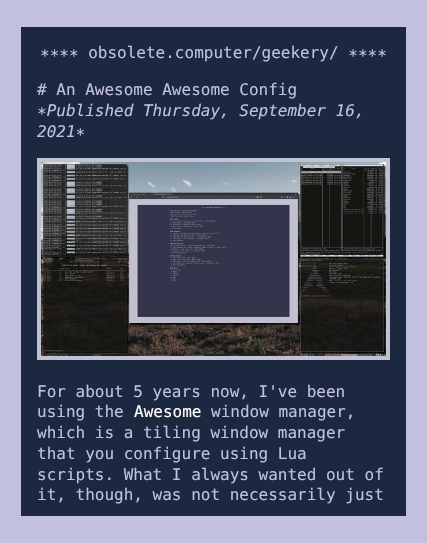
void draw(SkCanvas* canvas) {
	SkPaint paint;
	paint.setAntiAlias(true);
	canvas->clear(0xffc1c0e1);
	paint.setColor(0xff1c2740);
	canvas->drawRect(SkRect::MakeXYWH(21, 27, 385, 489), paint);
	SkFont f1(fontMgr->matchFamilyStyle("DejaVu Sans Mono", SkFontStyle::Normal()), 16);
	f1.setSubpixel(true);
	paint.setColor(0xffc1c0e1);
	canvas->drawString("∗∗∗∗ obsolete.computer/geekery/ ∗∗∗∗", 40, 58, f1, paint);
	canvas->drawString("# An Awesome Awesome Config", 37, 95, f1, paint);
	SkFont f2(fontMgr->matchFamilyStyle("DejaVu Sans Mono", SkFontStyle::Italic()), 16);
	f2.setSubpixel(true);
	canvas->drawString("∗Published Thursday, September 16,", 37, 116, f2, paint);
	canvas->drawString("2021∗", 37, 137, f2, paint);
	paint.setStroke(true);
	paint.setStrokeWidth(4);
	paint.setColor(0xffc2c1d2);
	canvas->drawRect(SkRect::MakeXYWH(39, 160, 349, 198), paint);
	canvas->drawImageRect(SkImages::DeferredFromEncodedData(SkData::MakeFromFileName("img1.png")), SkRect::MakeXYWH(41, 162, 345, 194), SkSamplingOptions());
	paint.setStroke(false);
	paint.setColor(0xffc1c0e1);
	canvas->drawString("For about 5 years now, I've been", 37, 397, f1, paint);
	canvas->drawString("using the", 37, 417, f1, paint);
	paint.setColor(0xffffffff);
	canvas->drawString("Awesome", 134, 417, f1, paint);
	paint.setColor(0xffc1c0e1);
	canvas->drawString("window manager,", 211, 417, f1, paint);
	canvas->drawString("which is a tiling window manager", 37, 438, f1, paint);
	canvas->drawString("that you configure using Lua", 37, 459, f1, paint);
	canvas->drawString("scripts. What I always wanted out of", 37, 480, f1, paint);
	canvas->drawString("it, though, was not necessarily just", 37, 500, f1, paint);
}
